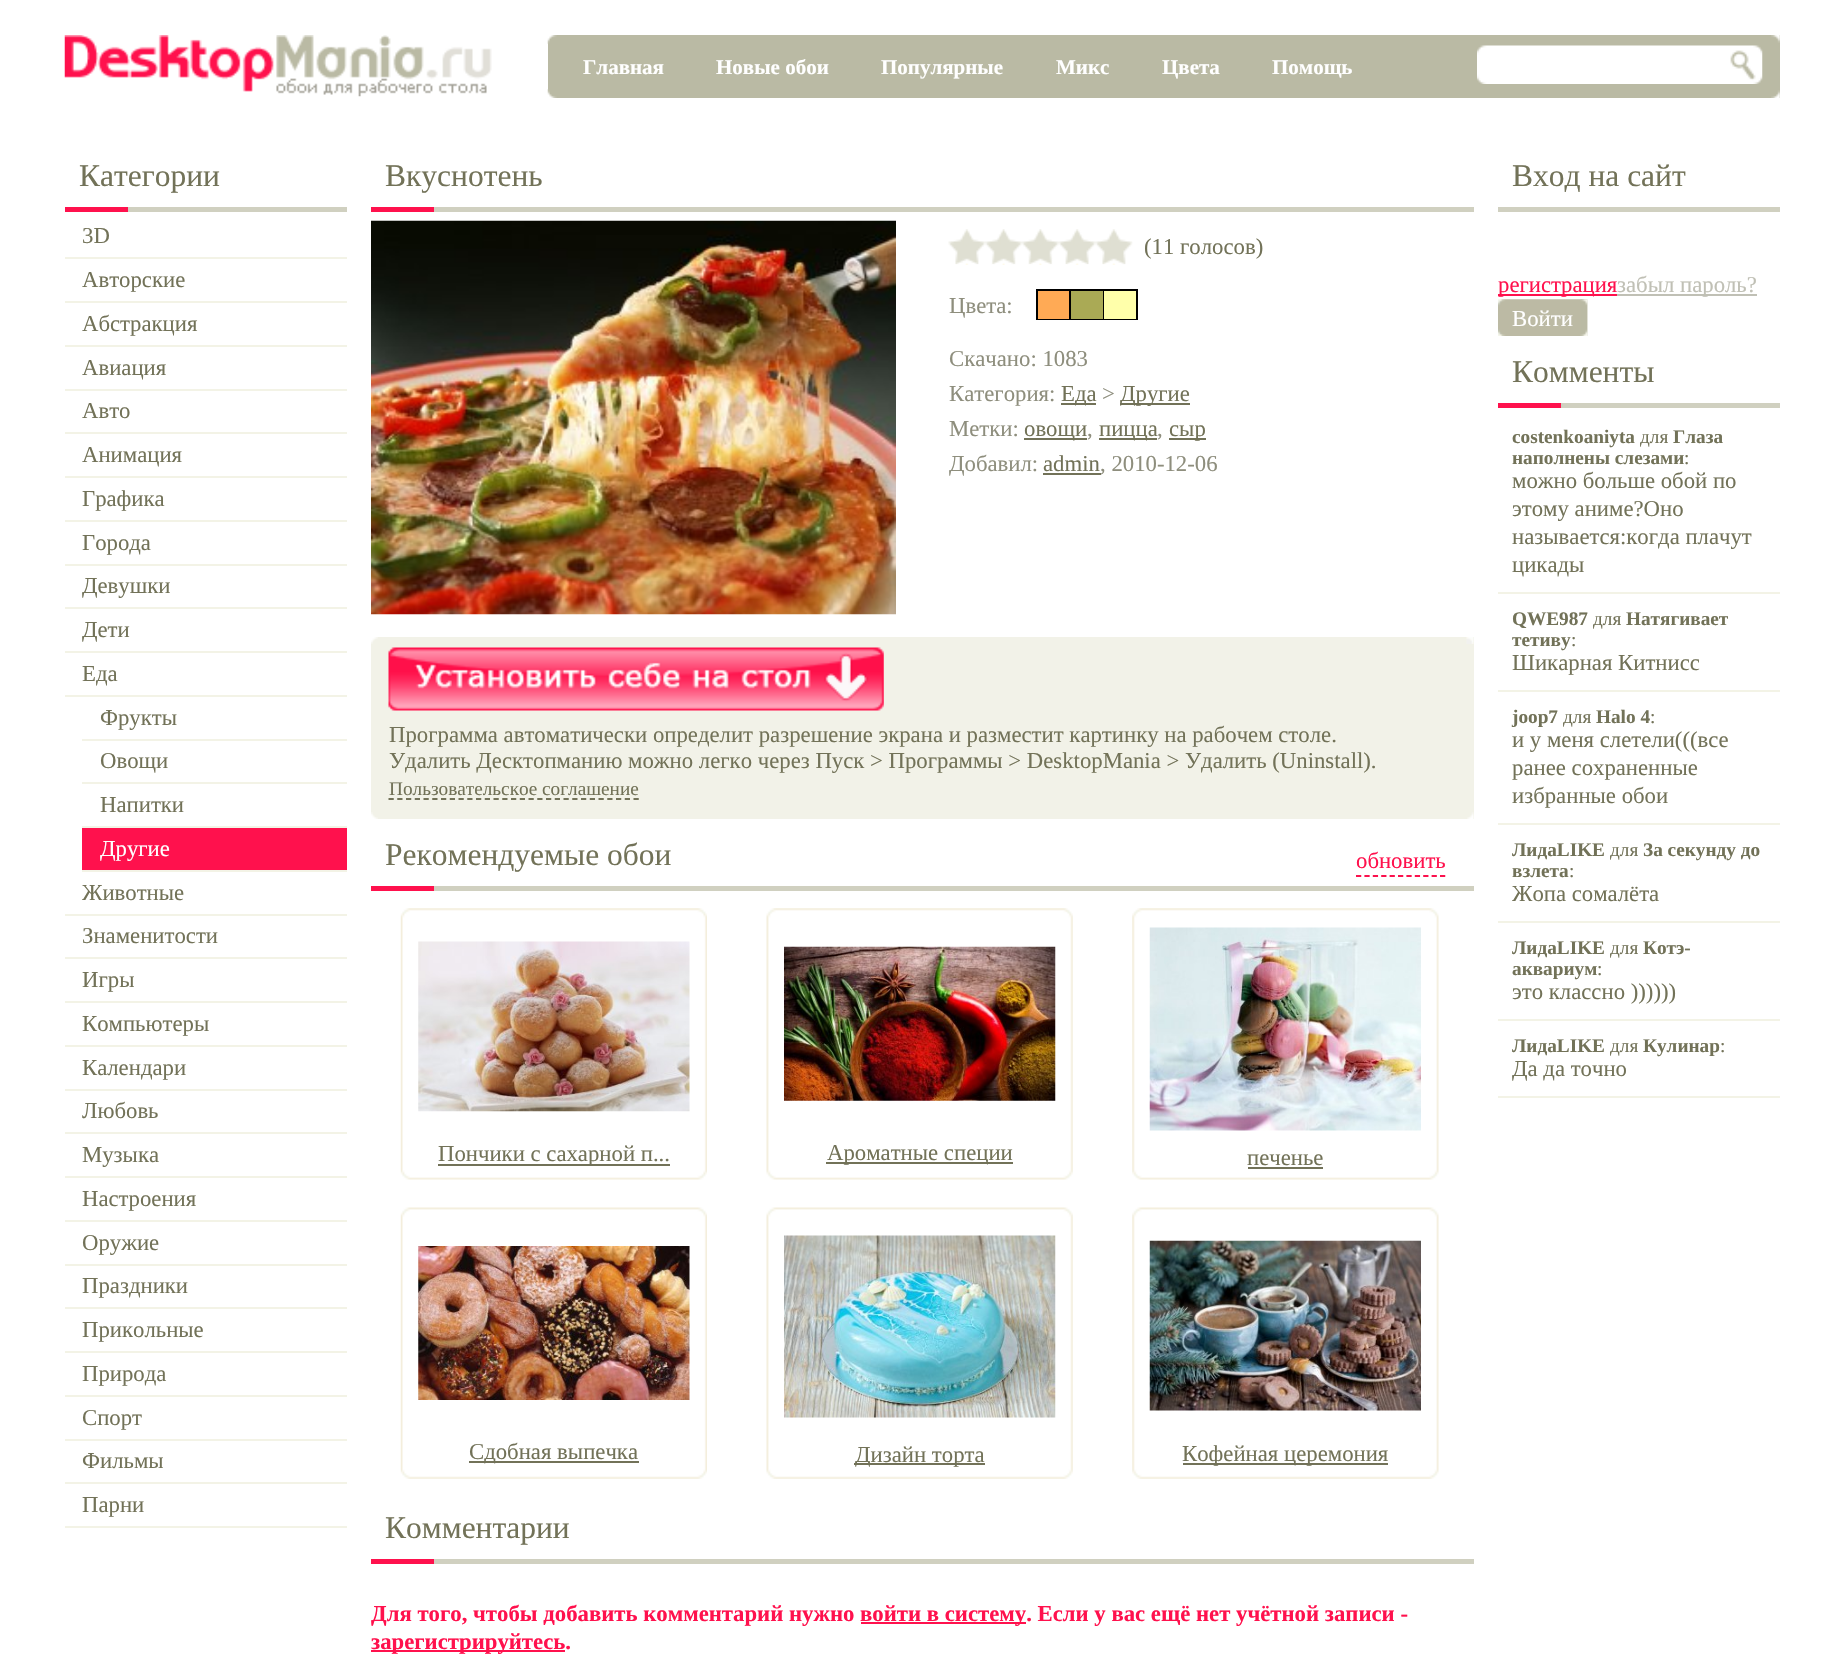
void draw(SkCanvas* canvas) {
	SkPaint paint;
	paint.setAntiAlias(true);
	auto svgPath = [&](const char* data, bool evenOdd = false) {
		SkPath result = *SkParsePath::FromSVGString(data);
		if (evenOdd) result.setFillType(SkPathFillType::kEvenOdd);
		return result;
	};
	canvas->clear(0xffffffff);
	canvas->drawImageRect(SkImages::DeferredFromEncodedData(SkData::MakeFromFileName("img1.png")), SkRect::MakeXYWH(64, 35, 428, 62), SkSamplingOptions());
	paint.setColor(0xffbabaa4);
	canvas->drawRect(SkRect::MakeXYWH(548, 35, 1232, 63), paint);
	canvas->drawImageRect(SkImages::DeferredFromEncodedData(SkData::MakeFromFileName("img2.png")), SkRect::MakeXYWH(547, 35, 10, 9), SkSamplingOptions());
	canvas->drawImageRect(SkImages::DeferredFromEncodedData(SkData::MakeFromFileName("img3.png")), SkRect::MakeXYWH(1771, 35, 9, 8), SkSamplingOptions());
	SkFont f1(fontMgr->matchFamilyStyle("Liberation Serif", SkFontStyle::Bold()), 21);
	f1.setSubpixel(true);
	paint.setColor(0xffffffff);
	canvas->drawString("Главная", 583, 74, f1, paint);
	canvas->drawString("Новые обои", 716, 74, f1, paint);
	canvas->drawString("Популярные", 881, 74, f1, paint);
	canvas->drawString("Микс", 1056, 74, f1, paint);
	canvas->drawString("Цвета", 1162, 74, f1, paint);
	canvas->drawString("Помощь", 1272, 74, f1, paint);
	canvas->drawImageRect(SkImages::DeferredFromEncodedData(SkData::MakeFromFileName("img4.png")), SkRect::MakeXYWH(1477, 45, 286, 39), SkSamplingOptions());
	canvas->drawRect(SkRect::MakeXYWH(1490, 55, 147, 19), paint);
	canvas->drawImageRect(SkImages::DeferredFromEncodedData(SkData::MakeFromFileName("img5.png")), SkRect::MakeXYWH(547, 89, 10, 9), SkSamplingOptions());
	canvas->drawImageRect(SkImages::DeferredFromEncodedData(SkData::MakeFromFileName("img6.png")), SkRect::MakeXYWH(1771, 90, 9, 8), SkSamplingOptions());
	paint.setColor(0xffd0d0c0);
	canvas->drawRect(SkRect::MakeXYWH(128, 207, 219, 5), paint);
	SkFont f2(fontMgr->matchFamilyStyle("Liberation Serif", SkFontStyle::Normal()), 31.5);
	f2.setSubpixel(true);
	paint.setColor(0xff727258);
	canvas->drawString("Категории", 79, 186, f2, paint);
	paint.setColor(0xffff114d);
	canvas->drawRect(SkRect::MakeXYWH(65, 207, 63, 5), paint);
	paint.setColor(0xfff3f3e6);
	canvas->drawRect(SkRect::MakeXYWH(65, 257, 282, 2), paint);
	SkFont f3(fontMgr->matchFamilyStyle("Liberation Serif", SkFontStyle::Normal()), 22.75);
	f3.setSubpixel(true);
	paint.setColor(0xff727258);
	canvas->drawString("3D", 82, 243, f3, paint);
	paint.setColor(0xfff3f3e6);
	canvas->drawRect(SkRect::MakeXYWH(65, 301, 282, 2), paint);
	paint.setColor(0xff727258);
	canvas->drawString("Авторские", 82, 287, f3, paint);
	paint.setColor(0xfff3f3e6);
	canvas->drawRect(SkRect::MakeXYWH(65, 345, 282, 2), paint);
	paint.setColor(0xff727258);
	canvas->drawString("Абстракция", 82, 331, f3, paint);
	paint.setColor(0xfff3f3e6);
	canvas->drawRect(SkRect::MakeXYWH(65, 389, 282, 2), paint);
	paint.setColor(0xff727258);
	canvas->drawString("Авиация", 82, 375, f3, paint);
	paint.setColor(0xfff3f3e6);
	canvas->drawRect(SkRect::MakeXYWH(65, 432, 282, 2), paint);
	paint.setColor(0xff727258);
	canvas->drawString("Авто", 82, 418, f3, paint);
	paint.setColor(0xfff3f3e6);
	canvas->drawRect(SkRect::MakeXYWH(65, 476, 282, 2), paint);
	paint.setColor(0xff727258);
	canvas->drawString("Анимация", 82, 462, f3, paint);
	paint.setColor(0xfff3f3e6);
	canvas->drawRect(SkRect::MakeXYWH(65, 520, 282, 2), paint);
	paint.setColor(0xff727258);
	canvas->drawString("Графика", 82, 506, f3, paint);
	paint.setColor(0xfff3f3e6);
	canvas->drawRect(SkRect::MakeXYWH(65, 564, 282, 2), paint);
	paint.setColor(0xff727258);
	canvas->drawString("Города", 82, 550, f3, paint);
	paint.setColor(0xfff3f3e6);
	canvas->drawRect(SkRect::MakeXYWH(65, 607, 282, 2), paint);
	paint.setColor(0xff727258);
	canvas->drawString("Девушки", 82, 593, f3, paint);
	paint.setColor(0xfff3f3e6);
	canvas->drawRect(SkRect::MakeXYWH(65, 651, 282, 2), paint);
	paint.setColor(0xff727258);
	canvas->drawString("Дети", 82, 637, f3, paint);
	paint.setColor(0xfff3f3e6);
	canvas->drawRect(SkRect::MakeXYWH(65, 695, 282, 2), paint);
	paint.setColor(0xff727258);
	canvas->drawString("Еда", 82, 681, f3, paint);
	paint.setColor(0xfff3f3e6);
	canvas->drawRect(SkRect::MakeXYWH(82, 739, 265, 2), paint);
	paint.setColor(0xff727258);
	canvas->drawString("Фрукты", 100, 725, f3, paint);
	paint.setColor(0xfff3f3e6);
	canvas->drawRect(SkRect::MakeXYWH(82, 782, 265, 2), paint);
	paint.setColor(0xff727258);
	canvas->drawString("Овощи", 100, 768, f3, paint);
	paint.setColor(0xfff3f3e6);
	canvas->drawRect(SkRect::MakeXYWH(82, 826, 265, 2), paint);
	paint.setColor(0xff727258);
	canvas->drawString("Напитки", 100, 812, f3, paint);
	paint.setColor(0xffff114d);
	canvas->drawRect(SkRect::MakeXYWH(82, 828, 265, 42), paint);
	paint.setColor(0xfff3f3e6);
	canvas->drawRect(SkRect::MakeXYWH(82, 870, 265, 2), paint);
	paint.setColor(0xffffffff);
	canvas->drawString("Другие", 100, 856, f3, paint);
	paint.setColor(0xfff3f3e6);
	canvas->drawRect(SkRect::MakeXYWH(65, 914, 282, 2), paint);
	paint.setColor(0xff727258);
	canvas->drawString("Животные", 82, 900, f3, paint);
	paint.setColor(0xfff3f3e6);
	canvas->drawRect(SkRect::MakeXYWH(65, 957, 282, 2), paint);
	paint.setColor(0xff727258);
	canvas->drawString("Знаменитости", 82, 943, f3, paint);
	paint.setColor(0xfff3f3e6);
	canvas->drawRect(SkRect::MakeXYWH(65, 1001, 282, 2), paint);
	paint.setColor(0xff727258);
	canvas->drawString("Игры", 82, 987, f3, paint);
	paint.setColor(0xfff3f3e6);
	canvas->drawRect(SkRect::MakeXYWH(65, 1045, 282, 2), paint);
	paint.setColor(0xff727258);
	canvas->drawString("Компьютеры", 82, 1031, f3, paint);
	paint.setColor(0xfff3f3e6);
	canvas->drawRect(SkRect::MakeXYWH(65, 1089, 282, 2), paint);
	paint.setColor(0xff727258);
	canvas->drawString("Календари", 82, 1075, f3, paint);
	paint.setColor(0xfff3f3e6);
	canvas->drawRect(SkRect::MakeXYWH(65, 1132, 282, 2), paint);
	paint.setColor(0xff727258);
	canvas->drawString("Любовь", 82, 1118, f3, paint);
	paint.setColor(0xfff3f3e6);
	canvas->drawRect(SkRect::MakeXYWH(65, 1176, 282, 2), paint);
	paint.setColor(0xff727258);
	canvas->drawString("Музыка", 82, 1162, f3, paint);
	paint.setColor(0xfff3f3e6);
	canvas->drawRect(SkRect::MakeXYWH(65, 1220, 282, 2), paint);
	paint.setColor(0xff727258);
	canvas->drawString("Настроения", 82, 1206, f3, paint);
	paint.setColor(0xfff3f3e6);
	canvas->drawRect(SkRect::MakeXYWH(65, 1264, 282, 2), paint);
	paint.setColor(0xff727258);
	canvas->drawString("Оружие", 82, 1250, f3, paint);
	paint.setColor(0xfff3f3e6);
	canvas->drawRect(SkRect::MakeXYWH(65, 1307, 282, 2), paint);
	paint.setColor(0xff727258);
	canvas->drawString("Праздники", 82, 1293, f3, paint);
	paint.setColor(0xfff3f3e6);
	canvas->drawRect(SkRect::MakeXYWH(65, 1351, 282, 2), paint);
	paint.setColor(0xff727258);
	canvas->drawString("Прикольные", 82, 1337, f3, paint);
	paint.setColor(0xfff3f3e6);
	canvas->drawRect(SkRect::MakeXYWH(65, 1395, 282, 2), paint);
	paint.setColor(0xff727258);
	canvas->drawString("Природа", 82, 1381, f3, paint);
	paint.setColor(0xfff3f3e6);
	canvas->drawRect(SkRect::MakeXYWH(65, 1439, 282, 2), paint);
	paint.setColor(0xff727258);
	canvas->drawString("Спорт", 82, 1425, f3, paint);
	paint.setColor(0xfff3f3e6);
	canvas->drawRect(SkRect::MakeXYWH(65, 1482, 282, 2), paint);
	paint.setColor(0xff727258);
	canvas->drawString("Фильмы", 82, 1468, f3, paint);
	paint.setColor(0xfff3f3e6);
	canvas->drawRect(SkRect::MakeXYWH(65, 1526, 282, 2), paint);
	paint.setColor(0xff727258);
	canvas->drawString("Парни", 82, 1512, f3, paint);
	paint.setColor(0xffd0d0c0);
	canvas->drawRect(SkRect::MakeXYWH(434, 207, 1040, 5), paint);
	paint.setColor(0xff727258);
	canvas->drawString("Вкуснотень", 385, 186, f2, paint);
	paint.setColor(0xffff114d);
	canvas->drawRect(SkRect::MakeXYWH(371, 207, 63, 5), paint);
	canvas->drawImageRect(SkImages::DeferredFromEncodedData(SkData::MakeFromFileName("img7.png")), SkRect::MakeXYWH(371, 220, 525, 395), SkSamplingOptions());
	canvas->drawImageRect(SkImages::DeferredFromEncodedData(SkData::MakeFromFileName("img8.png")), SkRect::MakeXYWH(948, 229, 185, 36), SkSamplingOptions());
	paint.setColor(0xff727258);
	canvas->drawString("(11 голосов)", 1144, 254, f3, paint);
	paint.setColor(0xff8e8e7d);
	canvas->drawString("Цвета:", 949, 313, f3, paint);
	paint.setColor(0xff000000);
	canvas->drawRect(SkRect::MakeXYWH(1036, 289, 102, 31), paint);
	paint.setColor(0xffffaa55);
	canvas->drawRect(SkRect::MakeXYWH(1038, 291, 31, 28), paint);
	paint.setColor(0xffaaaa55);
	canvas->drawRect(SkRect::MakeXYWH(1071, 291, 32, 28), paint);
	paint.setColor(0xffffffaa);
	canvas->drawRect(SkRect::MakeXYWH(1104, 291, 32, 28), paint);
	paint.setColor(0xff8e8e7d);
	canvas->drawString("Скачано: 1083", 949, 366, f3, paint);
	canvas->drawString("Категория:", 949, 401, f3, paint);
	paint.setColor(0xff727258);
	canvas->drawRect(SkRect::MakeXYWH(1061, 403, 35, 2), paint);
	canvas->drawString("Еда", 1061, 401, f3, paint);
	paint.setColor(0xff8e8e7d);
	canvas->drawString(">", 1102, 401, f3, paint);
	paint.setColor(0xff727258);
	canvas->drawRect(SkRect::MakeXYWH(1120, 403, 70, 2), paint);
	canvas->drawString("Другие", 1120, 401, f3, paint);
	paint.setColor(0xff8e8e7d);
	canvas->drawString("Метки:", 949, 436, f3, paint);
	paint.setColor(0xff727258);
	canvas->drawRect(SkRect::MakeXYWH(1024, 438, 63, 2), paint);
	canvas->drawString("овощи", 1024, 436, f3, paint);
	paint.setColor(0xff8e8e7d);
	canvas->drawString(",", 1087, 436, f3, paint);
	paint.setColor(0xff727258);
	canvas->drawRect(SkRect::MakeXYWH(1099, 438, 58, 2), paint);
	canvas->drawString("пицца", 1099, 436, f3, paint);
	paint.setColor(0xff8e8e7d);
	canvas->drawString(",", 1157, 436, f3, paint);
	paint.setColor(0xff727258);
	canvas->drawRect(SkRect::MakeXYWH(1169, 438, 37, 2), paint);
	canvas->drawString("сыр", 1169, 436, f3, paint);
	paint.setColor(0xff8e8e7d);
	canvas->drawString("Добавил:", 949, 471, f3, paint);
	paint.setColor(0xff727258);
	canvas->drawString("admin", 1043, 471, f3, paint);
	canvas->drawRect(SkRect::MakeXYWH(1043, 473, 58, 2), paint);
	paint.setColor(0xff8e8e7d);
	canvas->drawString(", 2010-12-06", 1100, 471, f3, paint);
	paint.setColor(0xfff2f2e8);
	canvas->drawRect(SkRect::MakeXYWH(371, 637, 1103, 182), paint);
	canvas->drawImageRect(SkImages::DeferredFromEncodedData(SkData::MakeFromFileName("img9.png")), SkRect::MakeXYWH(371, 637, 7, 7), SkSamplingOptions());
	canvas->drawImageRect(SkImages::DeferredFromEncodedData(SkData::MakeFromFileName("img10.png")), SkRect::MakeXYWH(1466, 637, 8, 7), SkSamplingOptions());
	canvas->drawImageRect(SkImages::DeferredFromEncodedData(SkData::MakeFromFileName("img11.png")), SkRect::MakeXYWH(388, 647, 496, 64), SkSamplingOptions());
	paint.setColor(0xff727258);
	canvas->drawString("Программа автоматически определит разрешение экрана и разместит картинку на рабочем столе.", 389, 742, f3, paint);
	canvas->drawString("Удалить Десктопманию можно легко через Пуск > Программы > DesktopMania > Удалить (Uninstall).", 389, 768, f3, paint);
	SkFont f4(fontMgr->matchFamilyStyle("Liberation Serif", SkFontStyle::Normal()), 19.25);
	f4.setSubpixel(true);
	canvas->drawString("Пользовательское соглашение", 389, 795, f4, paint);
	paint.setStroke(true);
	paint.setStrokeWidth(1.8);
	paint.setPathEffect(SkDashPathEffect::Make({{5.25f, 3.5f}}, 0));
	canvas->drawPath(svgPath("M388.5 799H639"), paint);
	paint.setPathEffect(nullptr);
	canvas->drawImageRect(SkImages::DeferredFromEncodedData(SkData::MakeFromFileName("img12.png")), SkRect::MakeXYWH(371, 812, 7, 7), SkSamplingOptions());
	canvas->drawImageRect(SkImages::DeferredFromEncodedData(SkData::MakeFromFileName("img13.png")), SkRect::MakeXYWH(1467, 812, 7, 7), SkSamplingOptions());
	paint.setStroke(false);
	paint.setColor(0xffd0d0c0);
	canvas->drawRect(SkRect::MakeXYWH(434, 886, 1040, 5), paint);
	paint.setColor(0xff727258);
	canvas->drawString("Рекомендуемые обои", 385, 865, f2, paint);
	paint.setStroke(true);
	paint.setColor(0xfffb114d);
	paint.setPathEffect(SkDashPathEffect::Make({{5.25f, 3.15f}}, 0));
	canvas->drawPath(svgPath("M1356 876H1445.5"), paint);
	paint.setPathEffect(nullptr);
	paint.setStroke(false);
	paint.setColor(0xffff114d);
	canvas->drawString("обновить", 1356, 868, f3, paint);
	canvas->drawRect(SkRect::MakeXYWH(371, 886, 63, 5), paint);
	canvas->drawImageRect(SkImages::DeferredFromEncodedData(SkData::MakeFromFileName("img14.png")), SkRect::MakeXYWH(400, 908, 307, 272), SkSamplingOptions());
	canvas->drawImageRect(SkImages::DeferredFromEncodedData(SkData::MakeFromFileName("img15.png")), SkRect::MakeXYWH(418, 941, 272, 171), SkSamplingOptions());
	paint.setColor(0xff727258);
	canvas->drawRect(SkRect::MakeXYWH(438, 1164, 232, 2), paint);
	canvas->drawString("Пончики с сахарной п...", 438, 1161, f3, paint);
	canvas->drawImageRect(SkImages::DeferredFromEncodedData(SkData::MakeFromFileName("img16.png")), SkRect::MakeXYWH(766, 908, 307, 272), SkSamplingOptions());
	canvas->drawImageRect(SkImages::DeferredFromEncodedData(SkData::MakeFromFileName("img17.png")), SkRect::MakeXYWH(784, 946, 272, 155), SkSamplingOptions());
	canvas->drawRect(SkRect::MakeXYWH(826, 1162, 187, 2), paint);
	canvas->drawString("Ароматные специи", 827, 1160, f3, paint);
	canvas->drawImageRect(SkImages::DeferredFromEncodedData(SkData::MakeFromFileName("img18.png")), SkRect::MakeXYWH(1132, 908, 307, 272), SkSamplingOptions());
	canvas->drawImageRect(SkImages::DeferredFromEncodedData(SkData::MakeFromFileName("img19.png")), SkRect::MakeXYWH(1149, 927, 272, 204), SkSamplingOptions());
	canvas->drawString("печенье", 1247, 1165, f3, paint);
	canvas->drawRect(SkRect::MakeXYWH(1248, 1167, 75, 2), paint);
	canvas->drawImageRect(SkImages::DeferredFromEncodedData(SkData::MakeFromFileName("img20.png")), SkRect::MakeXYWH(400, 1207, 307, 272), SkSamplingOptions());
	canvas->drawImageRect(SkImages::DeferredFromEncodedData(SkData::MakeFromFileName("img21.png")), SkRect::MakeXYWH(418, 1246, 272, 154), SkSamplingOptions());
	canvas->drawRect(SkRect::MakeXYWH(469, 1461, 170, 2), paint);
	canvas->drawString("Сдобная выпечка", 469, 1459, f3, paint);
	canvas->drawImageRect(SkImages::DeferredFromEncodedData(SkData::MakeFromFileName("img22.png")), SkRect::MakeXYWH(766, 1207, 307, 272), SkSamplingOptions());
	canvas->drawImageRect(SkImages::DeferredFromEncodedData(SkData::MakeFromFileName("img23.png")), SkRect::MakeXYWH(784, 1235, 272, 183), SkSamplingOptions());
	canvas->drawRect(SkRect::MakeXYWH(854, 1463, 131, 2), paint);
	canvas->drawString("Дизайн торта", 855, 1462, f3, paint);
	canvas->drawImageRect(SkImages::DeferredFromEncodedData(SkData::MakeFromFileName("img24.png")), SkRect::MakeXYWH(1132, 1207, 307, 272), SkSamplingOptions());
	canvas->drawImageRect(SkImages::DeferredFromEncodedData(SkData::MakeFromFileName("img25.png")), SkRect::MakeXYWH(1149, 1240, 272, 171), SkSamplingOptions());
	canvas->drawRect(SkRect::MakeXYWH(1183, 1463, 205, 2), paint);
	canvas->drawString("Кофейная церемония", 1182, 1461, f3, paint);
	paint.setColor(0xffd0d0c0);
	canvas->drawRect(SkRect::MakeXYWH(434, 1559, 1040, 5), paint);
	paint.setColor(0xff727258);
	canvas->drawString("Комментарии", 385, 1538, f2, paint);
	paint.setColor(0xffff114d);
	canvas->drawRect(SkRect::MakeXYWH(371, 1559, 63, 5), paint);
	SkFont f5(fontMgr->matchFamilyStyle("Liberation Serif", SkFontStyle::Bold()), 22.75);
	f5.setSubpixel(true);
	canvas->drawString("Для того, чтобы добавить комментарий нужно", 371, 1621, f5, paint);
	canvas->drawRect(SkRect::MakeXYWH(861, 1622, 165, 2), paint);
	canvas->drawString("войти в систему. Если у вас ещё нет учётной записи -", 860, 1621, f5, paint);
	canvas->drawRect(SkRect::MakeXYWH(371, 1650, 194, 2), paint);
	canvas->drawString("зарегистрируйтесь.", 371, 1649, f5, paint);
	paint.setColor(0xffd0d0c0);
	canvas->drawRect(SkRect::MakeXYWH(1498, 207, 282, 5), paint);
	paint.setColor(0xff727258);
	canvas->drawString("Вход на сайт", 1512, 186, f2, paint);
	paint.setColor(0xffff114d);
	canvas->drawRect(SkRect::MakeXYWH(1498, 294, 119, 2), paint);
	canvas->drawString("регистрация", 1498, 292, f3, paint);
	paint.setColor(0xffc0c0b5);
	canvas->drawRect(SkRect::MakeXYWH(1617, 294, 140, 2), paint);
	canvas->drawString("забыл пароль?", 1617, 292, f3, paint);
	canvas->drawImageRect(SkImages::DeferredFromEncodedData(SkData::MakeFromFileName("img26.png")), SkRect::MakeXYWH(1498, 299, 90, 37), SkSamplingOptions());
	canvas->drawImageRect(SkImages::DeferredFromEncodedData(SkData::MakeFromFileName("img27.png")), SkRect::MakeXYWH(1580, 299, 8, 37), SkSamplingOptions());
	paint.setColor(0xffffffff);
	canvas->drawString("Войти", 1512, 326, f3, paint);
	paint.setColor(0xffd0d0c0);
	canvas->drawRect(SkRect::MakeXYWH(1561, 403, 219, 5), paint);
	paint.setColor(0xff727258);
	canvas->drawString("Комменты", 1512, 382, f2, paint);
	paint.setColor(0xffff114d);
	canvas->drawRect(SkRect::MakeXYWH(1498, 403, 63, 5), paint);
	paint.setColor(0xfff3f3e6);
	canvas->drawRect(SkRect::MakeXYWH(1498, 592, 282, 2), paint);
	SkFont f6(fontMgr->matchFamilyStyle("Liberation Serif", SkFontStyle::Bold()), 19.25);
	f6.setSubpixel(true);
	paint.setColor(0xff727258);
	canvas->drawString("costenkoaniyta", 1512, 443, f6, paint);
	canvas->drawString("для", 1640, 443, f4, paint);
	canvas->drawString("Глаза", 1673, 443, f6, paint);
	canvas->drawString("наполнены слезами", 1512, 464, f6, paint);
	canvas->drawString(":", 1684, 464, f4, paint);
	canvas->drawString("можно больше обой по", 1512, 488, f3, paint);
	canvas->drawString("этому аниме?Оно", 1512, 516, f3, paint);
	canvas->drawString("называется:когда плачут", 1512, 544, f3, paint);
	canvas->drawString("цикады", 1512, 572, f3, paint);
	paint.setColor(0xfff3f3e6);
	canvas->drawRect(SkRect::MakeXYWH(1498, 690, 282, 2), paint);
	paint.setColor(0xff727258);
	canvas->drawString("QWE987", 1512, 625, f6, paint);
	canvas->drawString("для", 1593, 625, f4, paint);
	canvas->drawString("Натягивает", 1626, 625, f6, paint);
	canvas->drawString("тетиву", 1512, 646, f6, paint);
	canvas->drawString(":", 1571, 646, f4, paint);
	canvas->drawString("Шикарная Китнисс", 1512, 670, f3, paint);
	paint.setColor(0xfff3f3e6);
	canvas->drawRect(SkRect::MakeXYWH(1498, 823, 282, 2), paint);
	paint.setColor(0xff727258);
	canvas->drawString("joop7", 1512, 723, f6, paint);
	canvas->drawString("для", 1563, 723, f4, paint);
	canvas->drawString("Halo 4", 1596, 723, f6, paint);
	canvas->drawString(":", 1650, 723, f4, paint);
	canvas->drawString("и у меня слетели(((все", 1512, 747, f3, paint);
	canvas->drawString("ранее сохраненные", 1512, 775, f3, paint);
	canvas->drawString("избранные обои", 1512, 803, f3, paint);
	paint.setColor(0xfff3f3e6);
	canvas->drawRect(SkRect::MakeXYWH(1498, 921, 282, 2), paint);
	paint.setColor(0xff727258);
	canvas->drawString("ЛидаLIKE", 1512, 856, f6, paint);
	canvas->drawString("для", 1610, 856, f4, paint);
	canvas->drawString("За секунду до", 1643, 856, f6, paint);
	canvas->drawString("взлета", 1512, 877, f6, paint);
	canvas->drawString(":", 1569, 877, f4, paint);
	canvas->drawString("Жопа сомалёта", 1512, 901, f3, paint);
	paint.setColor(0xfff3f3e6);
	canvas->drawRect(SkRect::MakeXYWH(1498, 1019, 282, 2), paint);
	paint.setColor(0xff727258);
	canvas->drawString("ЛидаLIKE", 1512, 954, f6, paint);
	canvas->drawString("для", 1610, 954, f4, paint);
	canvas->drawString("Котэ-", 1643, 954, f6, paint);
	canvas->drawString("аквариум", 1512, 975, f6, paint);
	canvas->drawString(":", 1597, 975, f4, paint);
	canvas->drawString("это классно ))))))", 1512, 999, f3, paint);
	paint.setColor(0xfff3f3e6);
	canvas->drawRect(SkRect::MakeXYWH(1498, 1096, 282, 2), paint);
	paint.setColor(0xff727258);
	canvas->drawString("ЛидаLIKE", 1512, 1052, f6, paint);
	canvas->drawString("для", 1610, 1052, f4, paint);
	canvas->drawString("Кулинар", 1643, 1052, f6, paint);
	canvas->drawString(":", 1720, 1052, f4, paint);
	canvas->drawString("Да да точно", 1512, 1076, f3, paint);
}
